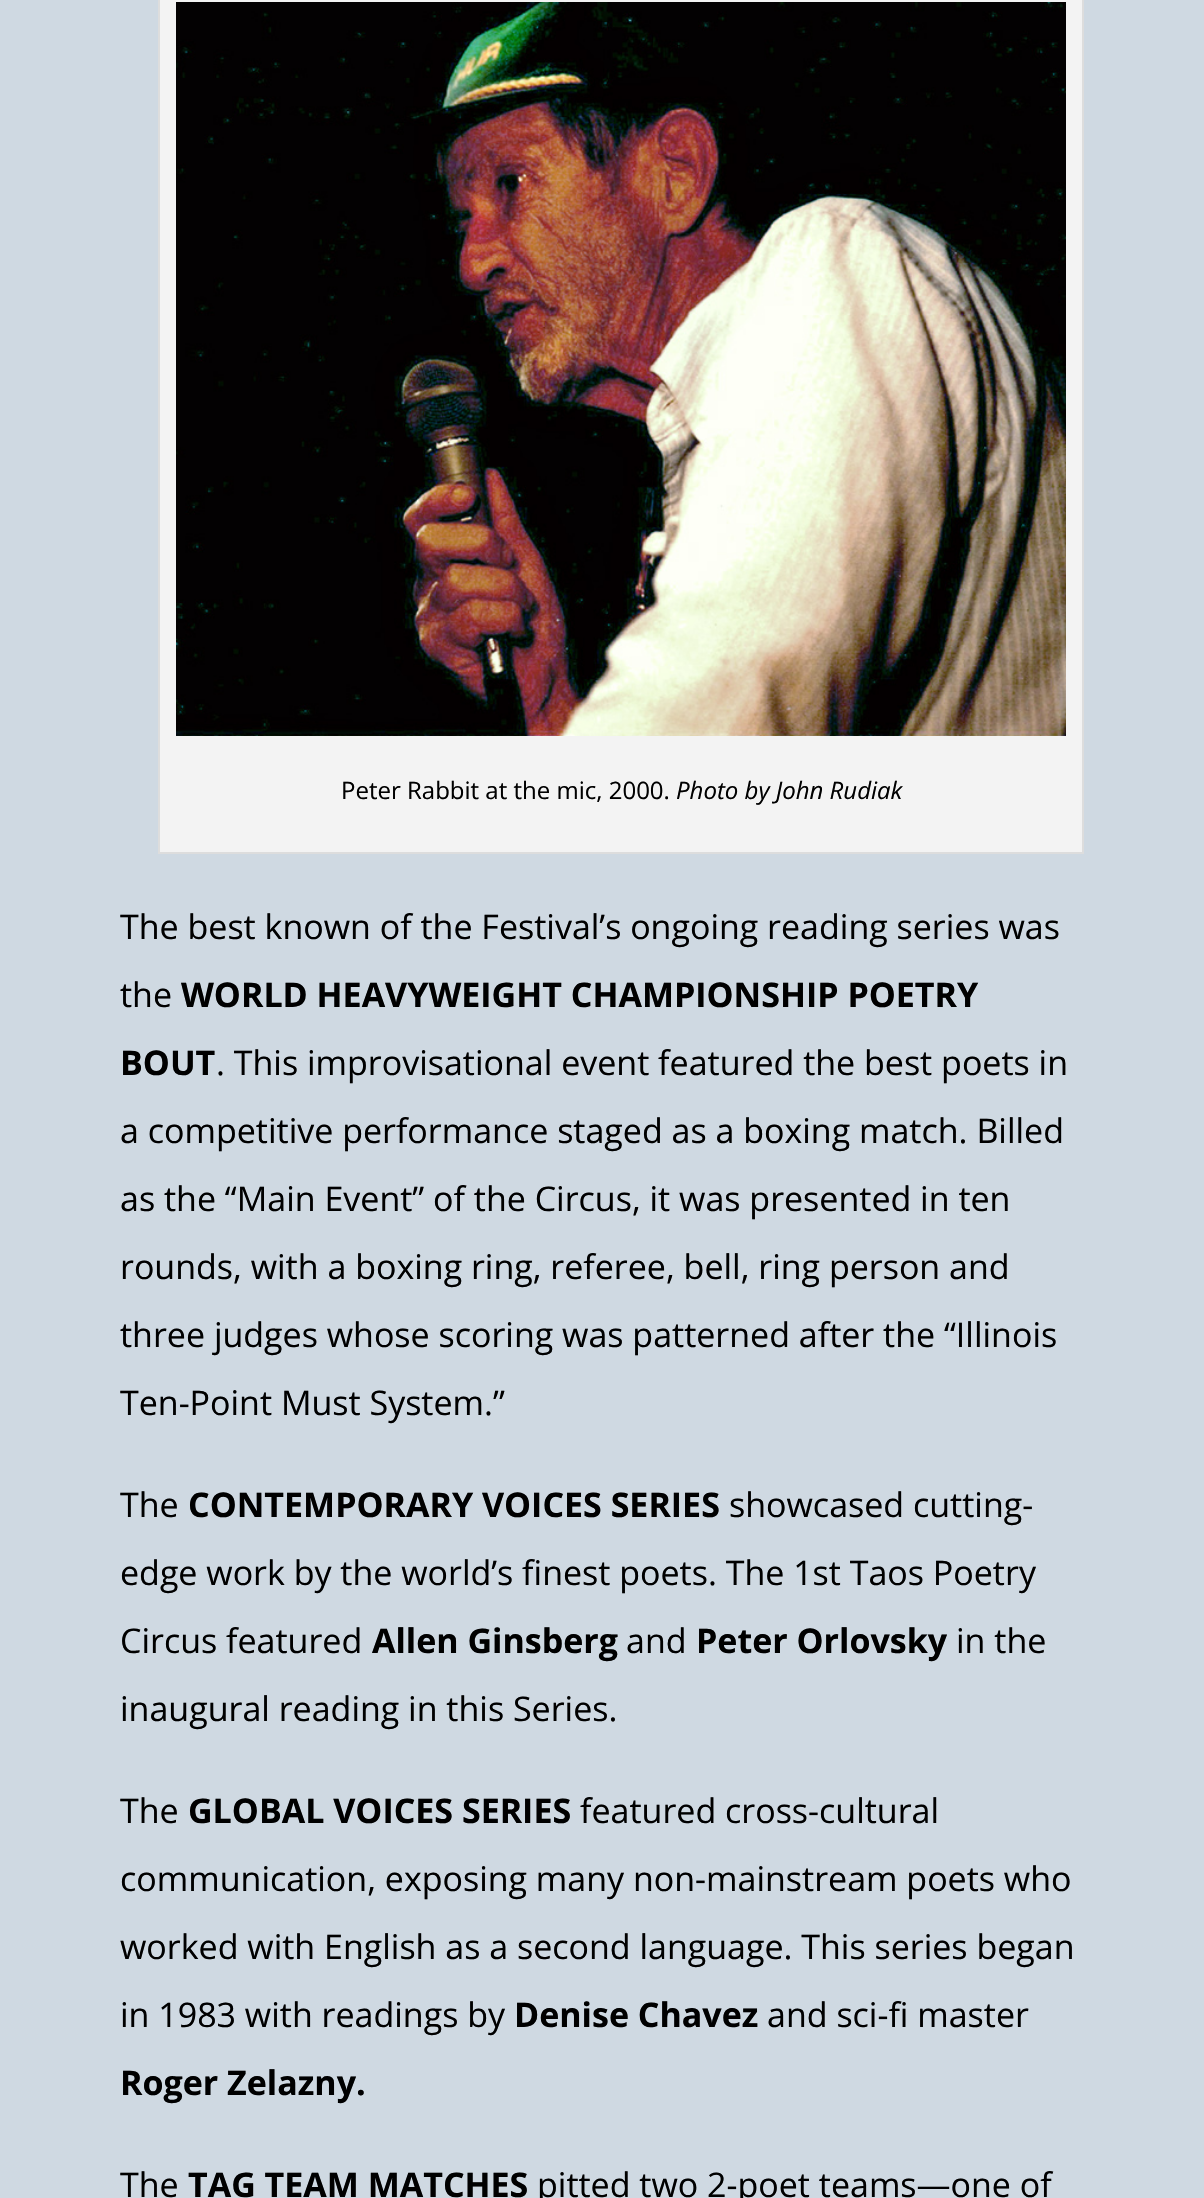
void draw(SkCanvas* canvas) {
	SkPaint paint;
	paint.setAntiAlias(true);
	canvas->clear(0xffcfd9e2);
	paint.setColor(0xfff3f3f3);
	canvas->drawRect(SkRect::MakeXYWH(159, -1, 924, 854), paint);
	paint.setStroke(true);
	paint.setStrokeWidth(2);
	paint.setColor(0xffdddddd);
	canvas->drawRect(SkRect::MakeXYWH(159, -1, 924, 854), paint);
	canvas->drawImageRect(SkImages::DeferredFromEncodedData(SkData::MakeFromFileName("img1.png")), SkRect::MakeXYWH(176, 2, 890, 734), SkSamplingOptions());
	SkFont f1(fontMgr->matchFamilyStyle("Open Sans", SkFontStyle::Normal()), 24);
	f1.setSubpixel(true);
	paint.setStroke(false);
	paint.setColor(0xff000000);
	canvas->drawString("Peter Rabbit at the mic, 2000.", 341, 799, f1, paint);
	SkFont f2(fontMgr->matchFamilyStyle("Open Sans", SkFontStyle::Italic()), 24);
	f2.setSubpixel(true);
	canvas->drawString("Photo by John Rudiak", 676, 799, f2, paint);
	SkFont f3(fontMgr->matchFamilyStyle("Open Sans", SkFontStyle::Normal()), 34);
	f3.setSubpixel(true);
	canvas->drawString("The best known of the Festival’s ongoing reading series was", 120, 939, f3, paint);
	canvas->drawString("the", 120, 1007, f3, paint);
	SkFont f4(fontMgr->matchFamilyStyle("Open Sans", SkFontStyle::Bold()), 34);
	f4.setSubpixel(true);
	canvas->drawString("WORLD HEAVYWEIGHT CHAMPIONSHIP POETRY", 181, 1007, f4, paint);
	canvas->drawString("BOUT", 120, 1075, f4, paint);
	canvas->drawString(". This improvisational event featured the best poets in", 216, 1075, f3, paint);
	canvas->drawString("a competitive performance staged as a boxing match. Billed", 120, 1143, f3, paint);
	canvas->drawString("as the “Main Event” of the Circus, it was presented in ten", 120, 1211, f3, paint);
	canvas->drawString("rounds, with a boxing ring, referee, bell, ring person and", 120, 1279, f3, paint);
	canvas->drawString("three judges whose scoring was patterned after the “Illinois", 120, 1347, f3, paint);
	canvas->drawString("Ten-Point Must System.”", 120, 1415, f3, paint);
	canvas->drawString("The", 120, 1517, f3, paint);
	canvas->drawString("CONTEMPORARY VOICES SERIES", 188, 1517, f4, paint);
	canvas->drawString("showcased cutting-", 729, 1517, f3, paint);
	canvas->drawString("edge work by the world’s finest poets. The 1st Taos Poetry", 120, 1585, f3, paint);
	canvas->drawString("Circus featured", 120, 1653, f3, paint);
	canvas->drawString("Allen Ginsberg", 372, 1653, f4, paint);
	canvas->drawString("and", 626, 1653, f3, paint);
	canvas->drawString("Peter Orlovsky", 696, 1653, f4, paint);
	canvas->drawString("in the", 956, 1653, f3, paint);
	canvas->drawString("inaugural reading in this Series.", 120, 1721, f3, paint);
	canvas->drawString("The", 120, 1823, f3, paint);
	canvas->drawString("GLOBAL VOICES SERIES", 188, 1823, f4, paint);
	canvas->drawString("featured cross-cultural", 580, 1823, f3, paint);
	canvas->drawString("communication, exposing many non-mainstream poets who", 120, 1891, f3, paint);
	canvas->drawString("worked with English as a second language. This series began", 120, 1959, f3, paint);
	canvas->drawString("in 1983 with readings by", 120, 2027, f3, paint);
	canvas->drawString("Denise Chavez", 514, 2027, f4, paint);
	canvas->drawString("and sci-fi master", 767, 2027, f3, paint);
	canvas->drawString("Roger Zelazny.", 120, 2095, f4, paint);
	canvas->drawString("The", 120, 2197, f3, paint);
	canvas->drawString("TAG TEAM MATCHES", 188, 2197, f4, paint);
	canvas->drawString("pitted two 2-poet teams—one of", 537, 2197, f3, paint);
}
